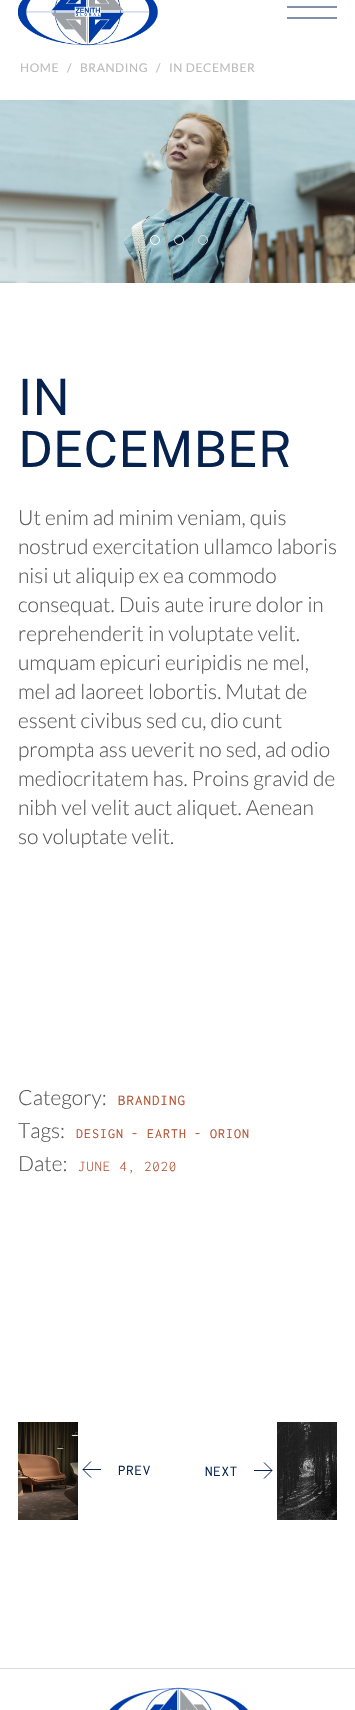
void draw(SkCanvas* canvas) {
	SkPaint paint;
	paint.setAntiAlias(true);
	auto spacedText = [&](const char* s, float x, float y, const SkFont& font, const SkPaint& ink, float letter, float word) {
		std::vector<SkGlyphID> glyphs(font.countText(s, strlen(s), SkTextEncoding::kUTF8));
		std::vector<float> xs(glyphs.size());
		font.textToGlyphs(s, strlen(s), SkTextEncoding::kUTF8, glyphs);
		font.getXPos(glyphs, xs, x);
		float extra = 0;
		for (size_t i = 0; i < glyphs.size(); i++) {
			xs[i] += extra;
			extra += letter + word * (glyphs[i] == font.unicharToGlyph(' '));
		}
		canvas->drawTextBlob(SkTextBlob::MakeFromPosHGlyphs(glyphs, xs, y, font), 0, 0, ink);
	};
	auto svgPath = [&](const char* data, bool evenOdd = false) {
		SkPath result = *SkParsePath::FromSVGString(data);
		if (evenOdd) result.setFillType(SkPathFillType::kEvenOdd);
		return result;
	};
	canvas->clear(0xffffffff);
	canvas->drawImageRect(SkImages::DeferredFromEncodedData(SkData::MakeFromFileName("img1.png")), SkRect::MakeXYWH(18, 0, 140, 46), SkSamplingOptions());
	paint.setStroke(true);
	paint.setStrokeWidth(1);
	paint.setColor(0xff062350);
	canvas->drawPath(svgPath("M287 7H337M287 18H337"), paint);
	SkFont f1(fontMgr->matchFamilyStyle("Lato", SkFontStyle::Normal()), 12);
	f1.setSubpixel(true);
	paint.setStroke(false);
	paint.setColor(0xffbcbcbc);
	spacedText("HOME", 20, 72, f1, paint, 0.6, 0);
	spacedText("/", 67, 72, f1, paint, 0.6, 0);
	spacedText("BRANDING", 80, 72, f1, paint, 0.6, 0);
	spacedText("/", 156, 72, f1, paint, 0.6, 0);
	spacedText("IN DECEMBER", 169, 72, f1, paint, 0.6, 0);
	canvas->drawImageRect(SkImages::DeferredFromEncodedData(SkData::MakeFromFileName("img2.png")), SkRect::MakeXYWH(0, 100, 355, 183), SkSamplingOptions());
	paint.setStroke(true);
	paint.setColor(0xffffffff);
	canvas->drawCircle(155, 240, 4.5, paint);
	paint.setColor(0xffdbd9d3);
	canvas->drawCircle(179, 240, 4.5, paint);
	canvas->drawCircle(203, 240, 4.5, paint);
	SkFont f2(fontMgr->matchFamilyStyle("Public Sans", SkFontStyle::Normal()), 50);
	f2.setSubpixel(true);
	paint.setStroke(false);
	paint.setColor(0xff062350);
	canvas->drawString("IN", 18, 415, f2, paint);
	canvas->drawString("DECEMBER", 18, 467, f2, paint);
	SkFont f3(fontMgr->matchFamilyStyle("Lato", SkFontStyle(300, SkFontStyle::kNormal_Width, SkFontStyle::kUpright_Slant)), 21);
	f3.setSubpixel(true);
	paint.setColor(0xff575757);
	canvas->drawString("Ut enim ad minim veniam, quis", 18, 525, f3, paint);
	canvas->drawString("nostrud exercitation ullamco laboris", 18, 554, f3, paint);
	canvas->drawString("nisi ut aliquip ex ea commodo", 18, 583, f3, paint);
	canvas->drawString("consequat. Duis aute irure dolor in", 18, 612, f3, paint);
	canvas->drawString("reprehenderit in voluptate velit.", 18, 641, f3, paint);
	canvas->drawString("umquam epicuri euripidis ne mel,", 18, 670, f3, paint);
	canvas->drawString("mel ad laoreet lobortis. Mutat de", 18, 699, f3, paint);
	canvas->drawString("essent civibus sed cu, dio cunt", 18, 728, f3, paint);
	canvas->drawString("prompta ass ueverit no sed, ad odio", 18, 757, f3, paint);
	canvas->drawString("mediocritatem has. Proins gravid de", 18, 786, f3, paint);
	canvas->drawString("nibh vel velit auct aliquet. Aenean", 18, 815, f3, paint);
	canvas->drawString("so voluptate velit.", 18, 844, f3, paint);
	canvas->drawString("Category:", 18, 1105, f3, paint);
	SkFont f4(fontMgr->matchFamilyStyle("Inconsolata", SkFontStyle::Normal()), 15);
	f4.setSubpixel(true);
	paint.setColor(0xffb55332);
	spacedText("BRANDING", 118, 1105, f4, paint, 1, 0);
	paint.setColor(0xff575757);
	canvas->drawString("Tags:", 18, 1138, f3, paint);
	SkFont f5(fontMgr->matchFamilyStyle("Inconsolata", SkFontStyle::Normal()), 14);
	f5.setSubpixel(true);
	paint.setColor(0xffb55332);
	spacedText("DESIGN", 76, 1138, f5, paint, 1, 0);
	spacedText("-", 131, 1138, f5, paint, 1, 0);
	spacedText("EARTH", 147, 1138, f5, paint, 1, 0);
	spacedText("-", 194, 1138, f5, paint, 1, 0);
	spacedText("ORION", 210, 1138, f5, paint, 1, 0);
	paint.setColor(0xff575757);
	canvas->drawString("Date:", 18, 1171, f3, paint);
	SkFont f6(fontMgr->matchFamilyStyle("Inconsolata", SkFontStyle(300, SkFontStyle::kNormal_Width, SkFontStyle::kUpright_Slant)), 15);
	f6.setSubpixel(true);
	paint.setColor(0xffb55332);
	spacedText("JUNE 4, 2020", 78, 1171, f6, paint, 0.75, 0);
	canvas->drawImageRect(SkImages::DeferredFromEncodedData(SkData::MakeFromFileName("img3.png")), SkRect::MakeXYWH(18, 1422, 60, 98), SkSamplingOptions());
	paint.setColor(0xff062350);
	spacedText("PREV", 118, 1475, f4, paint, 0.75, 0);
	paint.setStroke(true);
	canvas->drawPath(svgPath("M91 1477.5L83 1469.5L91 1461.5"), paint);
	paint.setStroke(false);
	canvas->drawRect(SkRect::MakeXYWH(83, 1469, 18, 1), paint);
	spacedText("NEXT", 205, 1476, f4, paint, 0.75, 0);
	paint.setStroke(true);
	canvas->drawPath(svgPath("M264 1478.5L272 1470.5L264 1462.5"), paint);
	paint.setStroke(false);
	canvas->drawRect(SkRect::MakeXYWH(254, 1470, 18, 1), paint);
	canvas->drawImageRect(SkImages::DeferredFromEncodedData(SkData::MakeFromFileName("img4.png")), SkRect::MakeXYWH(277, 1422, 60, 98), SkSamplingOptions());
	paint.setColor(0xffdbdbdb);
	canvas->drawRect(SkRect::MakeXYWH(0, 1668, 355, 1), paint);
	canvas->drawImageRect(SkImages::DeferredFromEncodedData(SkData::MakeFromFileName("img5.png")), SkRect::MakeXYWH(109, 1687, 140, 23), SkSamplingOptions());
}
